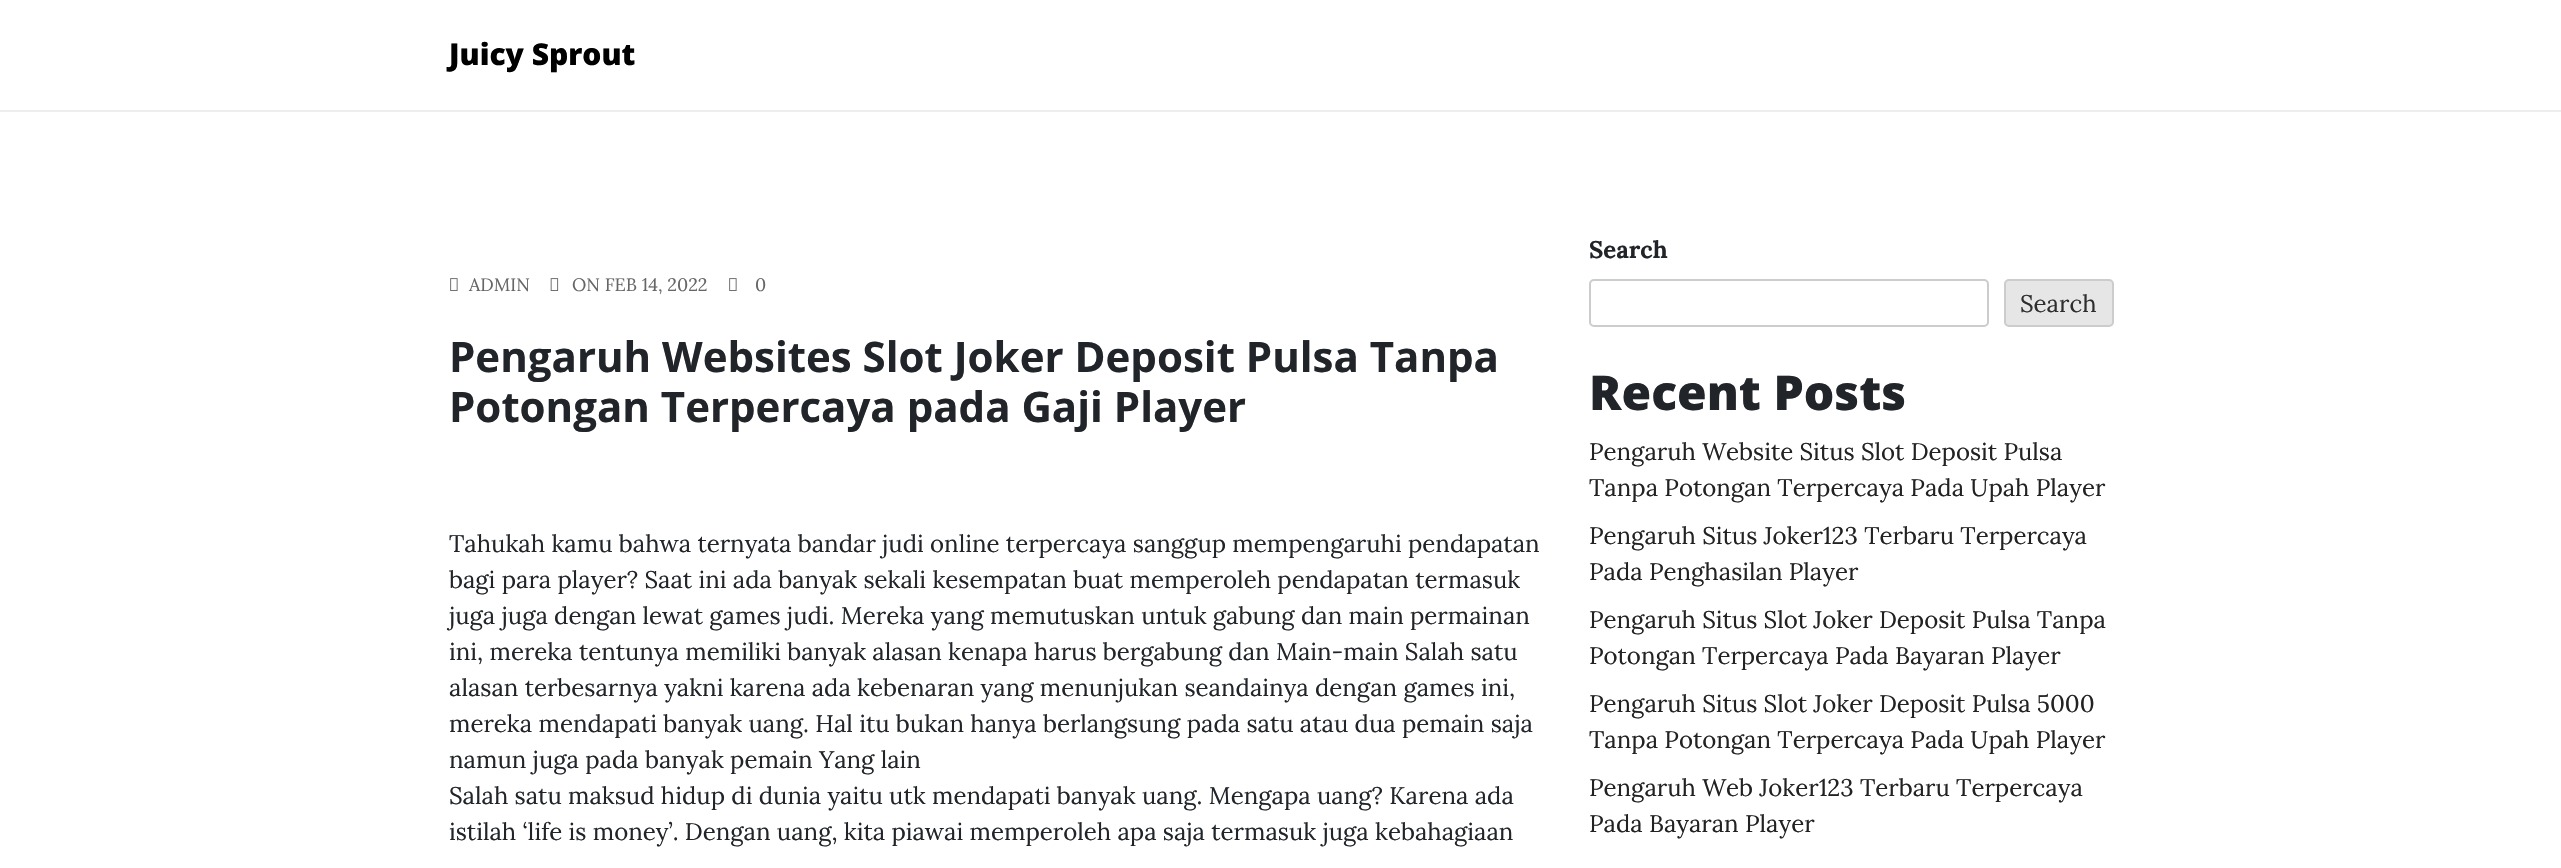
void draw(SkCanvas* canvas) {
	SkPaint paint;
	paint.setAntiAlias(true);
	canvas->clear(0xffffffff);
	paint.setColor(0xffeeeeee);
	canvas->drawRect(SkRect::MakeXYWH(0, 110, 2561, 2), paint);
	SkFont f1(fontMgr->matchFamilyStyle("Open Sans", SkFontStyle(800, SkFontStyle::kNormal_Width, SkFontStyle::kUpright_Slant)), 30);
	f1.setSubpixel(true);
	paint.setColor(0xff000000);
	canvas->drawString("Juicy Sprout", 449, 65, f1, paint);
	canvas->drawImageRect(SkImages::DeferredFromEncodedData(SkData::MakeFromFileName("img1.png")), SkRect::MakeXYWH(450, 278, 8, 13), SkSamplingOptions());
	SkFont f2(fontMgr->matchFamilyStyle("Lora", SkFontStyle::Normal()), 18);
	f2.setSubpixel(true);
	paint.setColor(0xff666666);
	canvas->drawString("ADMIN", 469, 291, f2, paint);
	canvas->drawImageRect(SkImages::DeferredFromEncodedData(SkData::MakeFromFileName("img2.png")), SkRect::MakeXYWH(550, 278, 9, 13), SkSamplingOptions());
	canvas->drawString("ON FEB 14, 2022", 572, 291, f2, paint);
	canvas->drawImageRect(SkImages::DeferredFromEncodedData(SkData::MakeFromFileName("img1.png")), SkRect::MakeXYWH(729, 278, 8, 13), SkSamplingOptions());
	canvas->drawString("0", 755, 291, f2, paint);
	SkFont f3(fontMgr->matchFamilyStyle("Open Sans", SkFontStyle::Bold()), 42);
	f3.setSubpixel(true);
	paint.setColor(0xff212529);
	canvas->drawString("Pengaruh Websites Slot Joker Deposit Pulsa Tanpa", 449, 372, f3, paint);
	canvas->drawString("Potongan Terpercaya pada Gaji Player", 449, 422, f3, paint);
	paint.setColor(0xffffffff);
	canvas->drawRect(SkRect::MakeXYWH(581, 432, 602, 1), paint);
	SkFont f4(fontMgr->matchFamilyStyle("Lora", SkFontStyle::Normal()), 24);
	f4.setSubpixel(true);
	paint.setColor(0xff212529);
	canvas->drawString("Tahukah kamu bahwa ternyata bandar judi online terpercaya sanggup mempengaruhi pendapatan", 449, 552, f4, paint);
	canvas->drawString("bagi para player? Saat ini ada banyak sekali kesempatan buat memperoleh pendapatan termasuk", 449, 588, f4, paint);
	canvas->drawString("juga juga dengan lewat games judi. Mereka yang memutuskan untuk gabung dan main permainan", 449, 624, f4, paint);
	canvas->drawString("ini, mereka tentunya memiliki banyak alasan kenapa harus bergabung dan Main-main Salah satu", 449, 660, f4, paint);
	canvas->drawString("alasan terbesarnya yakni karena ada kebenaran yang menunjukan seandainya dengan games ini,", 449, 696, f4, paint);
	canvas->drawString("mereka mendapati banyak uang. Hal itu bukan hanya berlangsung pada satu atau dua pemain saja", 449, 732, f4, paint);
	canvas->drawString("namun juga pada banyak pemain Yang lain", 449, 768, f4, paint);
	canvas->drawString("Salah satu maksud hidup di dunia yaitu utk mendapati banyak uang. Mengapa uang? Karena ada", 449, 804, f4, paint);
	canvas->drawString("istilah ‘life is money’. Dengan uang, kita piawai memperoleh apa saja termasuk juga kebahagiaan", 449, 840, f4, paint);
	SkFont f5(fontMgr->matchFamilyStyle("Lora", SkFontStyle::Bold()), 24);
	f5.setSubpixel(true);
	canvas->drawString("Search", 1589, 258, f5, paint);
	paint.setStroke(true);
	paint.setStrokeWidth(2);
	paint.setColor(0xffcccccc);
	canvas->drawRoundRect(SkRect::MakeXYWH(1590, 280, 398, 46), 4, 4, paint);
	paint.setStroke(false);
	paint.setColor(0xffe6e6e6);
	canvas->drawRoundRect(SkRect::MakeXYWH(2005, 280, 108, 46), 4, 4, paint);
	paint.setStroke(true);
	paint.setColor(0xffcccccc);
	canvas->drawRoundRect(SkRect::MakeXYWH(2005, 280, 108, 46), 4, 4, paint);
	paint.setStroke(false);
	paint.setColor(0xff2e2e2e);
	canvas->drawString("Search", 2020, 312, f4, paint);
	SkFont f6(fontMgr->matchFamilyStyle("Open Sans", SkFontStyle(800, SkFontStyle::kNormal_Width, SkFontStyle::kUpright_Slant)), 48);
	f6.setSubpixel(true);
	paint.setColor(0xff212529);
	canvas->drawString("Recent Posts", 1589, 410, f6, paint);
	paint.setColor(0xff222222);
	canvas->drawString("Pengaruh Website Situs Slot Deposit Pulsa", 1589, 460, f4, paint);
	canvas->drawString("Tanpa Potongan Terpercaya Pada Upah Player", 1589, 496, f4, paint);
	canvas->drawString("Pengaruh Situs Joker123 Terbaru Terpercaya", 1589, 544, f4, paint);
	canvas->drawString("Pada Penghasilan Player", 1589, 580, f4, paint);
	canvas->drawString("Pengaruh Situs Slot Joker Deposit Pulsa Tanpa", 1589, 628, f4, paint);
	canvas->drawString("Potongan Terpercaya Pada Bayaran Player", 1589, 664, f4, paint);
	canvas->drawString("Pengaruh Situs Slot Joker Deposit Pulsa 5000", 1589, 712, f4, paint);
	canvas->drawString("Tanpa Potongan Terpercaya Pada Upah Player", 1589, 748, f4, paint);
	canvas->drawString("Pengaruh Web Joker123 Terbaru Terpercaya", 1589, 796, f4, paint);
	canvas->drawString("Pada Bayaran Player", 1589, 832, f4, paint);
}
